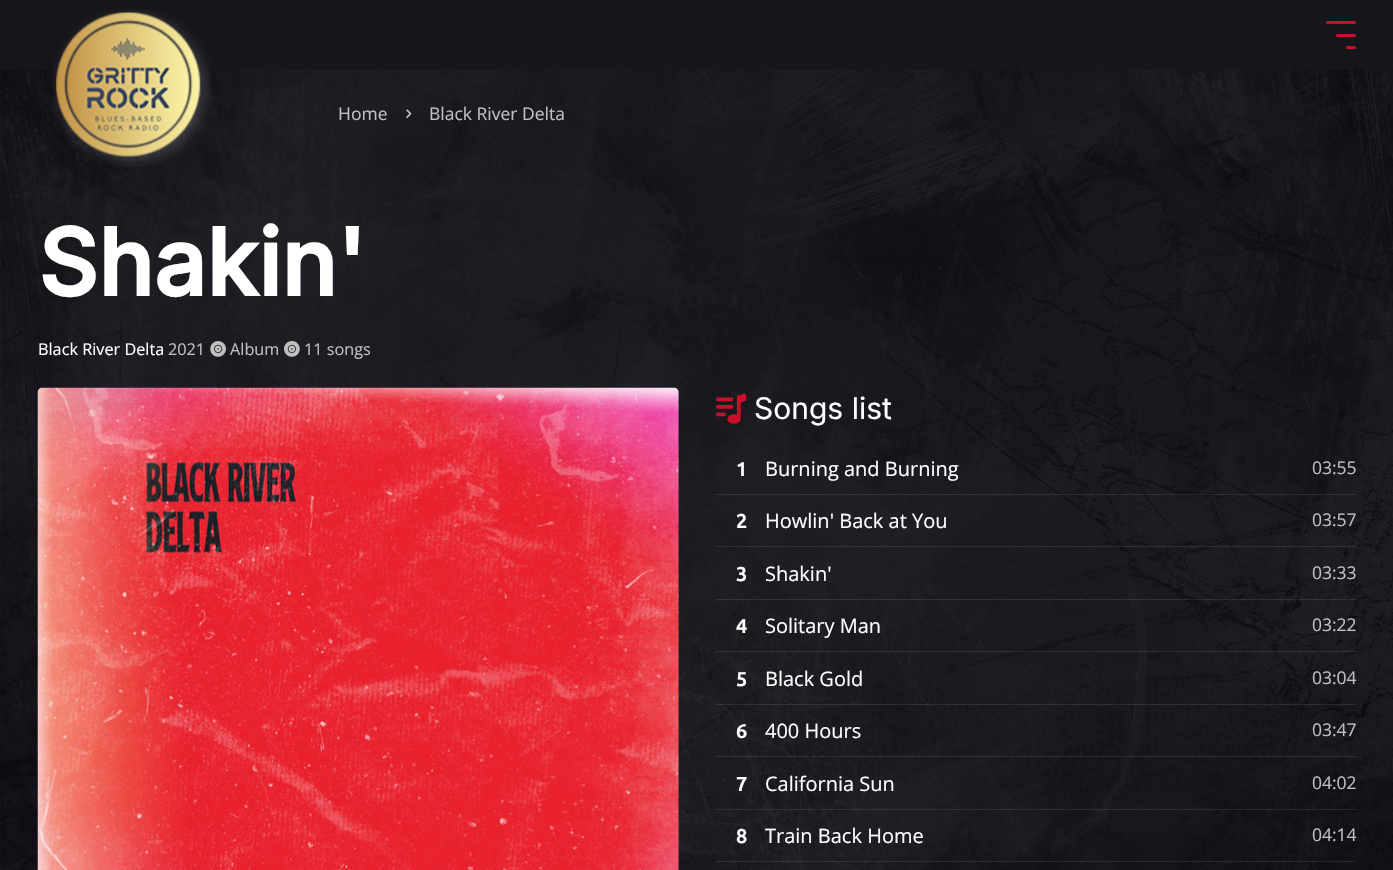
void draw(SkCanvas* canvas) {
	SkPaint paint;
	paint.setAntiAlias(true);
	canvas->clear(0xffffffff);
	canvas->drawImageRect(SkImages::DeferredFromEncodedData(SkData::MakeFromFileName("img1.png")), SkRect::MakeXYWH(0, 0, 1393, 870), SkSamplingOptions());
	paint.setColor(0xf216151a);
	canvas->drawRect(SkRect::MakeXYWH(0, 0, 1393, 70), paint);
	canvas->drawImageRect(SkImages::DeferredFromEncodedData(SkData::MakeFromFileName("img2.png")), SkRect::MakeXYWH(53, 9, 158, 158), SkSamplingOptions());
	paint.setColor(0xffca1028);
	canvas->drawRoundRect(SkRect::MakeXYWH(1326, 21, 30, 3), 1.5, 1.5, paint);
	canvas->drawRoundRect(SkRect::MakeXYWH(1336, 34, 20, 3), 1.5, 1.5, paint);
	canvas->drawRoundRect(SkRect::MakeXYWH(1346, 46, 10, 3), 1.5, 1.5, paint);
	SkFont f1(fontMgr->matchFamilyStyle("Open Sans", SkFontStyle::Normal()), 17.5);
	f1.setSubpixel(true);
	paint.setColor(0xffc0c0c0);
	canvas->drawString("Home", 338, 120, f1, paint);
	canvas->drawImageRect(SkImages::DeferredFromEncodedData(SkData::MakeFromFileName("img3.png")), SkRect::MakeXYWH(406, 109, 6, 9), SkSamplingOptions());
	canvas->drawString("Black River Delta", 429, 120, f1, paint);
	SkFont f2(fontMgr->matchFamilyStyle("Inter", SkFontStyle::Bold()), 92.5);
	f2.setSubpixel(true);
	paint.setColor(0xffffffff);
	canvas->drawString("Shakin'", 38, 296, f2, paint);
	SkFont f3(fontMgr->matchFamilyStyle("Open Sans", SkFontStyle::Normal()), 16.25);
	f3.setSubpixel(true);
	canvas->drawString("Black River Delta", 38, 355, f3, paint);
	paint.setColor(0xffc0c0c0);
	canvas->drawString("2021", 168, 355, f3, paint);
	canvas->drawImageRect(SkImages::DeferredFromEncodedData(SkData::MakeFromFileName("img4.png")), SkRect::MakeXYWH(210, 341, 16, 16), SkSamplingOptions());
	canvas->drawString("Album", 230, 355, f3, paint);
	canvas->drawImageRect(SkImages::DeferredFromEncodedData(SkData::MakeFromFileName("img5.png")), SkRect::MakeXYWH(284, 341, 16, 16), SkSamplingOptions());
	canvas->drawString("11 songs", 304, 355, f3, paint);
	canvas->drawImageRect(SkImages::DeferredFromEncodedData(SkData::MakeFromFileName("img6.png")), SkRect::MakeXYWH(37, 387, 642, 483), SkSamplingOptions());
	canvas->drawImageRect(SkImages::DeferredFromEncodedData(SkData::MakeFromFileName("img7.png")), SkRect::MakeXYWH(716, 393, 31, 31), SkSamplingOptions());
	SkFont f4(fontMgr->matchFamilyStyle("Inter", SkFontStyle::Normal()), 30);
	f4.setSubpixel(true);
	paint.setColor(0xffffffff);
	canvas->drawString("Songs list", 754, 419, f4, paint);
	paint.setColor(0x17ffffff);
	canvas->drawRect(SkRect::MakeXYWH(716, 494, 640, 1), paint);
	SkFont f5(fontMgr->matchFamilyStyle("Ubuntu", SkFontStyle::Bold()), 20);
	f5.setSubpixel(true);
	paint.setColor(0xffffffff);
	canvas->drawString("1", 736, 476, f5, paint);
	SkFont f6(fontMgr->matchFamilyStyle("Open Sans", SkFontStyle::Normal()), 20);
	f6.setSubpixel(true);
	canvas->drawString("Burning and Burning", 765, 476, f6, paint);
	paint.setColor(0xffc0c0c0);
	canvas->drawString("03:55", 1312, 474, f1, paint);
	paint.setColor(0x17ffffff);
	canvas->drawRect(SkRect::MakeXYWH(716, 546, 640, 1), paint);
	paint.setColor(0xffffffff);
	canvas->drawString("2", 736, 528, f5, paint);
	canvas->drawString("Howlin' Back at You", 765, 528, f6, paint);
	paint.setColor(0xffc0c0c0);
	canvas->drawString("03:57", 1312, 526, f1, paint);
	paint.setColor(0x17ffffff);
	canvas->drawRect(SkRect::MakeXYWH(716, 599, 640, 1), paint);
	paint.setColor(0xffffffff);
	canvas->drawString("3", 736, 581, f5, paint);
	canvas->drawString("Shakin'", 765, 581, f6, paint);
	paint.setColor(0xffc0c0c0);
	canvas->drawString("03:33", 1312, 579, f1, paint);
	paint.setColor(0x17ffffff);
	canvas->drawRect(SkRect::MakeXYWH(716, 651, 640, 1), paint);
	paint.setColor(0xffffffff);
	canvas->drawString("4", 736, 633, f5, paint);
	canvas->drawString("Solitary Man", 765, 633, f6, paint);
	paint.setColor(0xffc0c0c0);
	canvas->drawString("03:22", 1312, 631, f1, paint);
	paint.setColor(0x17ffffff);
	canvas->drawRect(SkRect::MakeXYWH(716, 704, 640, 1), paint);
	paint.setColor(0xffffffff);
	canvas->drawString("5", 736, 686, f5, paint);
	canvas->drawString("Black Gold", 765, 686, f6, paint);
	paint.setColor(0xffc0c0c0);
	canvas->drawString("03:04", 1312, 684, f1, paint);
	paint.setColor(0x17ffffff);
	canvas->drawRect(SkRect::MakeXYWH(716, 756, 640, 1), paint);
	paint.setColor(0xffffffff);
	canvas->drawString("6", 736, 738, f5, paint);
	canvas->drawString("400 Hours", 765, 738, f6, paint);
	paint.setColor(0xffc0c0c0);
	canvas->drawString("03:47", 1312, 736, f1, paint);
	paint.setColor(0x17ffffff);
	canvas->drawRect(SkRect::MakeXYWH(716, 809, 640, 1), paint);
	paint.setColor(0xffffffff);
	canvas->drawString("7", 736, 791, f5, paint);
	canvas->drawString("California Sun", 765, 791, f6, paint);
	paint.setColor(0xffc0c0c0);
	canvas->drawString("04:02", 1312, 789, f1, paint);
	paint.setColor(0x17ffffff);
	canvas->drawRect(SkRect::MakeXYWH(716, 861, 640, 1), paint);
	paint.setColor(0xffffffff);
	canvas->drawString("8", 736, 843, f5, paint);
	canvas->drawString("Train Back Home", 765, 843, f6, paint);
	paint.setColor(0xffc0c0c0);
	canvas->drawString("04:14", 1312, 841, f1, paint);
}
